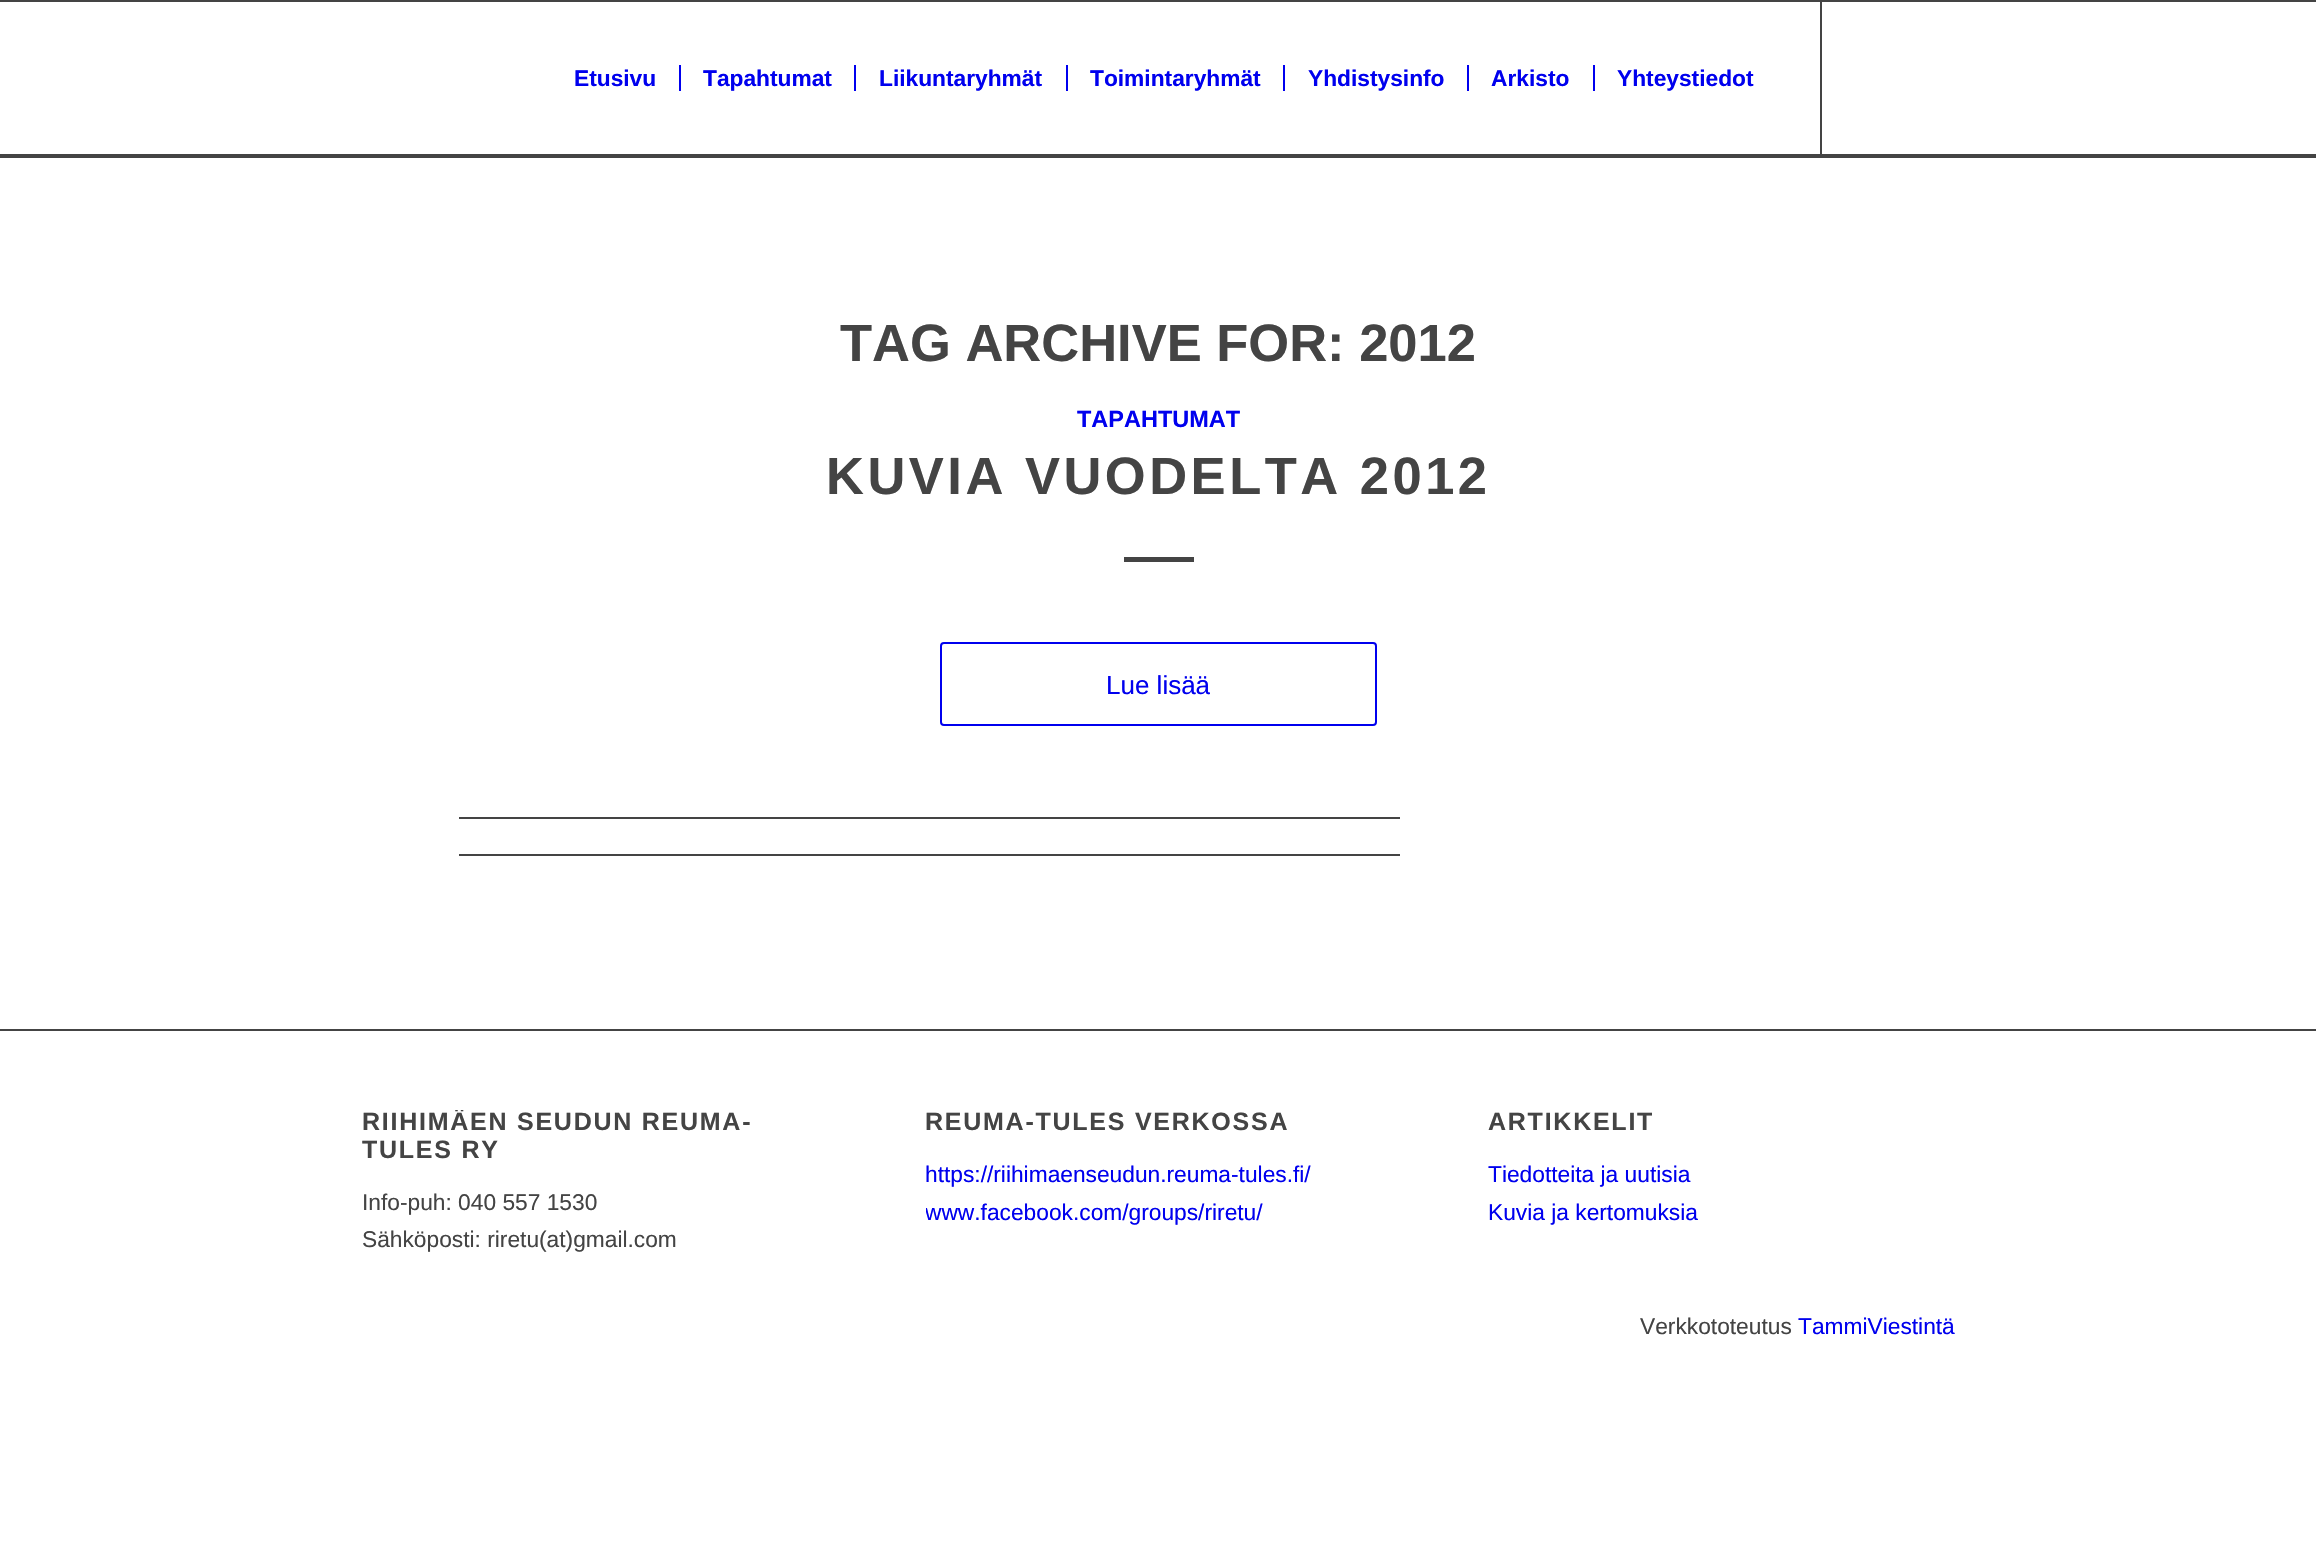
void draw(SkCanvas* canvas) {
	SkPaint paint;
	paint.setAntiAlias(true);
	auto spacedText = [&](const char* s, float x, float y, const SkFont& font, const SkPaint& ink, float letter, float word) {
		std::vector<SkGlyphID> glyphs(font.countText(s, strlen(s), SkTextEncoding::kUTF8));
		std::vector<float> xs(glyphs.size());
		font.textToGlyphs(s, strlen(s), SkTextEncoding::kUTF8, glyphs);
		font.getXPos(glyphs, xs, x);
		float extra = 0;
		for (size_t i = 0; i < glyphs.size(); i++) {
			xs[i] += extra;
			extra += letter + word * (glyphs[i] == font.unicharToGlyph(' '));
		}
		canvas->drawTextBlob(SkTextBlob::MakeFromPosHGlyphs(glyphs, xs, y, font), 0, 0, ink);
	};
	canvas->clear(0xffffffff);
	paint.setColor(0xff444444);
	canvas->drawRect(SkRect::MakeXYWH(0, 0, 2316, 2), paint);
	canvas->drawRect(SkRect::MakeXYWH(0, 154, 2316, 4), paint);
	canvas->drawRect(SkRect::MakeXYWH(1820, 2, 2, 154), paint);
	SkFont f1(fontMgr->matchFamilyStyle("Liberation Sans", SkFontStyle::Bold()), 22.75);
	f1.setSubpixel(true);
	paint.setColor(0xff0000ee);
	canvas->drawString("Etusivu", 574, 86, f1, paint);
	canvas->drawString("Tapahtumat", 703, 86, f1, paint);
	canvas->drawRect(SkRect::MakeXYWH(679, 65, 2, 26), paint);
	canvas->drawString("Liikuntaryhmät", 879, 86, f1, paint);
	canvas->drawRect(SkRect::MakeXYWH(854, 65, 2, 26), paint);
	canvas->drawString("Toimintaryhmät", 1090, 86, f1, paint);
	canvas->drawRect(SkRect::MakeXYWH(1066, 65, 2, 26), paint);
	canvas->drawString("Yhdistysinfo", 1308, 86, f1, paint);
	canvas->drawRect(SkRect::MakeXYWH(1283, 65, 2, 26), paint);
	canvas->drawString("Arkisto", 1491, 86, f1, paint);
	canvas->drawRect(SkRect::MakeXYWH(1467, 65, 2, 26), paint);
	canvas->drawString("Yhteystiedot", 1617, 86, f1, paint);
	canvas->drawRect(SkRect::MakeXYWH(1593, 65, 2, 26), paint);
	SkFont f2(fontMgr->matchFamilyStyle("Liberation Sans", SkFontStyle::Bold()), 52.5);
	f2.setSubpixel(true);
	paint.setColor(0xff444444);
	canvas->drawString("TAG ARCHIVE FOR: 2012", 840, 361, f2, paint);
	SkFont f3(fontMgr->matchFamilyStyle("Liberation Sans", SkFontStyle::Bold()), 23.5);
	f3.setSubpixel(true);
	paint.setColor(0xff0000ee);
	canvas->drawString("TAPAHTUMAT", 1077, 427, f3, paint);
	paint.setColor(0xff444444);
	spacedText("KUVIA VUODELTA 2012", 826, 494, f2, paint, 3.5, 0);
	canvas->drawRect(SkRect::MakeXYWH(1124, 557, 70, 5), paint);
	paint.setStroke(true);
	paint.setStrokeWidth(2);
	paint.setColor(0xff0000ee);
	canvas->drawRoundRect(SkRect::MakeXYWH(941, 643, 435, 82), 3, 3, paint);
	SkFont f4(fontMgr->matchFamilyStyle("Liberation Sans", SkFontStyle::Normal()), 26);
	f4.setSubpixel(true);
	paint.setStroke(false);
	canvas->drawString("Lue lisää", 1106, 694, f4, paint);
	paint.setColor(0xff444444);
	canvas->drawRect(SkRect::MakeXYWH(459, 817, 941, 2), paint);
	canvas->drawRect(SkRect::MakeXYWH(459, 854, 941, 2), paint);
	canvas->drawRect(SkRect::MakeXYWH(0, 1029, 2316, 2), paint);
	canvas->save();
	canvas->clipRect(SkRect::MakeXYWH(362, 1110, 468, 168));
	SkFont f5(fontMgr->matchFamilyStyle("Liberation Sans", SkFontStyle::Bold()), 25);
	f5.setSubpixel(true);
	spacedText("RIIHIMÄEN SEUDUN REUMA-", 362, 1130, f5, paint, 1.75, 0);
	canvas->restore();
	spacedText("TULES RY", 362, 1158, f5, paint, 1.75, 0);
	SkFont f6(fontMgr->matchFamilyStyle("Liberation Sans", SkFontStyle::Normal()), 22.75);
	f6.setSubpixel(true);
	canvas->drawString("Info-puh: 040 557 1530", 362, 1210, f6, paint);
	canvas->drawString("Sähköposti: riretu(at)gmail.com", 362, 1247, f6, paint);
	spacedText("REUMA-TULES VERKOSSA", 925, 1130, f5, paint, 1.75, 0);
	paint.setColor(0xff0000ee);
	canvas->drawString("https://riihimaenseudun.reuma-tules.fi/", 925, 1182, f6, paint);
	canvas->save();
	canvas->clipRect(SkRect::MakeXYWH(926, 1110, 465, 197));
	canvas->drawString("www.facebook.com/groups/riretu/", 925, 1220, f6, paint);
	canvas->restore();
	paint.setColor(0xff444444);
	spacedText("ARTIKKELIT", 1488, 1130, f5, paint, 1.75, 0);
	paint.setColor(0xff0000ee);
	canvas->drawString("Tiedotteita ja uutisia", 1488, 1182, f6, paint);
	canvas->drawString("Kuvia ja kertomuksia", 1488, 1220, f6, paint);
	paint.setColor(0xff444444);
	canvas->drawString("Verkkototeutus", 1640, 1334, f6, paint);
	paint.setColor(0xff0000ee);
	canvas->drawString("TammiViestintä", 1798, 1334, f6, paint);
}
